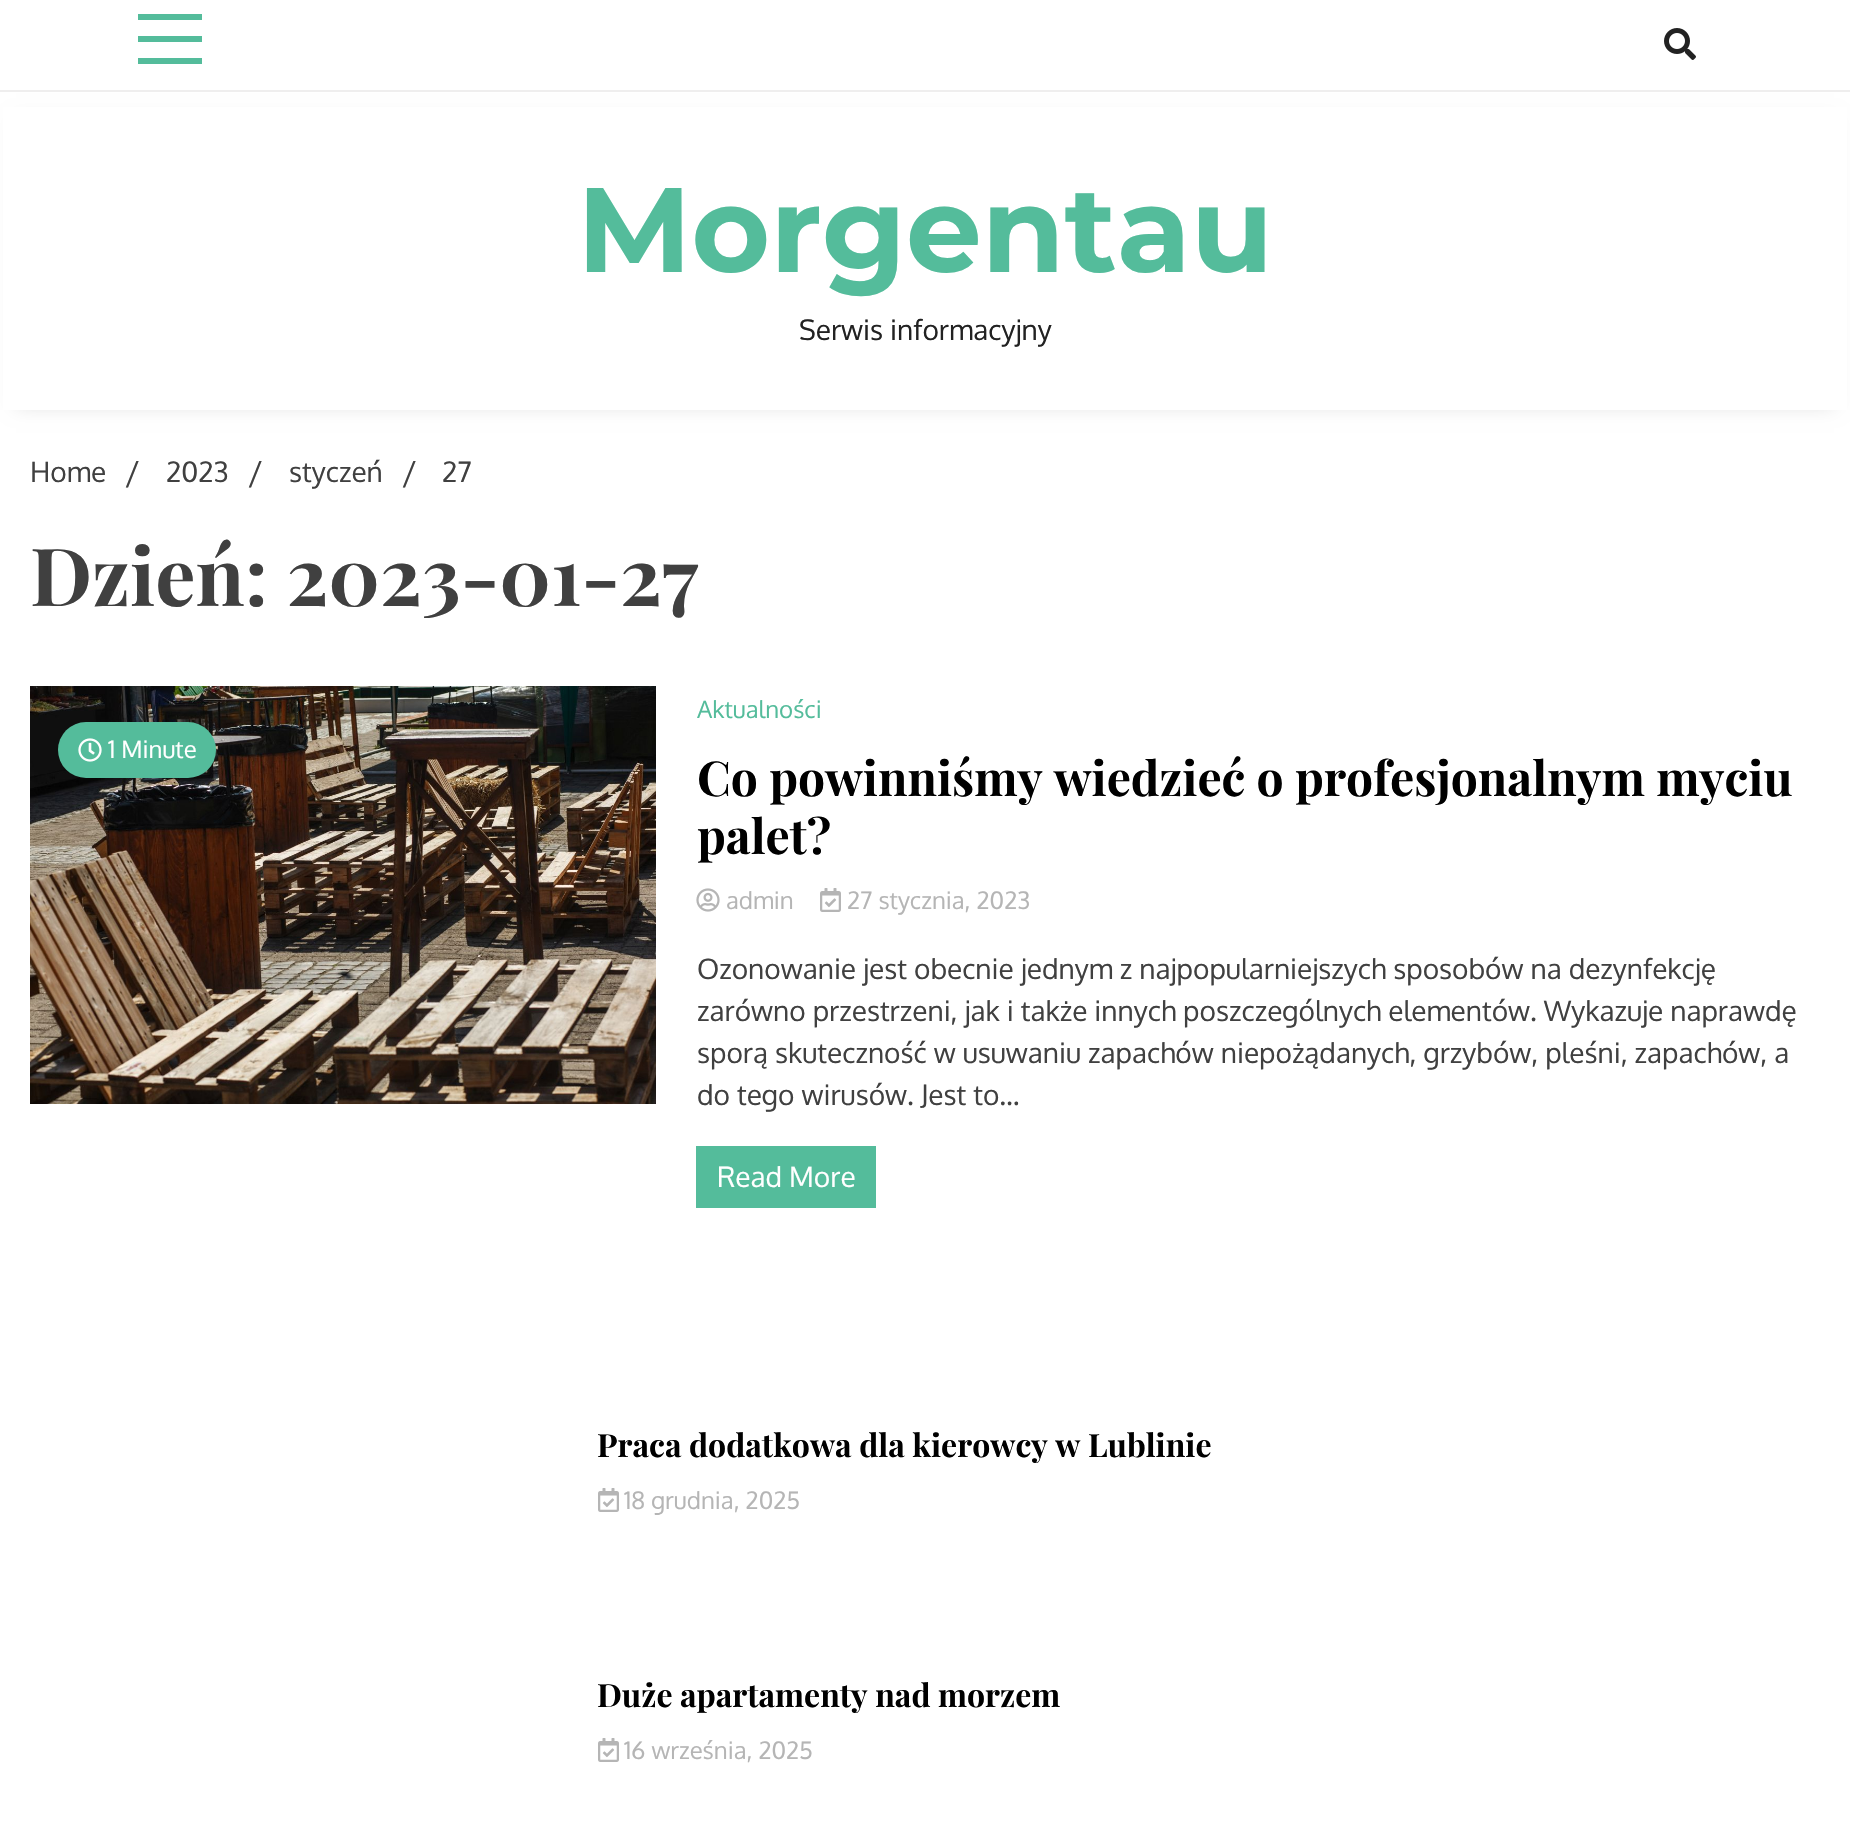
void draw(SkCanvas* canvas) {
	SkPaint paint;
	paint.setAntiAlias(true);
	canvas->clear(0xffffffff);
	paint.setColor(0xffefeeee);
	canvas->drawRect(SkRect::MakeXYWH(0, 90, 1850, 2), paint);
	paint.setColor(0xff54bc9b);
	canvas->drawRect(SkRect::MakeXYWH(138, 14, 64, 6), paint);
	canvas->drawRect(SkRect::MakeXYWH(138, 36, 64, 6), paint);
	canvas->drawRect(SkRect::MakeXYWH(138, 58, 64, 6), paint);
	canvas->drawImageRect(SkImages::DeferredFromEncodedData(SkData::MakeFromFileName("img1.png")), SkRect::MakeXYWH(1664, 28, 32, 32), SkSamplingOptions());
	paint.setColor(0x21000000);
	paint.setMaskFilter(SkMaskFilter::MakeBlur(kNormal_SkBlurStyle, 9));
	canvas->drawRect(SkRect::MakeXYWH(16, 120, 1818, 286), paint);
	paint.setMaskFilter(nullptr);
	paint.setColor(0xffffffff);
	canvas->drawRect(SkRect::MakeXYWH(3, 107, 1844, 303), paint);
	SkFont f1(fontMgr->matchFamilyStyle("Montserrat", SkFontStyle::Bold()), 120);
	f1.setSubpixel(true);
	paint.setColor(0xff54bc9b);
	canvas->drawString("Morgentau", 577, 272, f1, paint);
	SkFont f2(fontMgr->matchFamilyStyle("Oxygen", SkFontStyle::Normal()), 28);
	f2.setSubpixel(true);
	paint.setColor(0xff222222);
	canvas->drawString("Serwis informacyjny", 799, 340, f2, paint);
	paint.setColor(0xff404040);
	canvas->drawString("Home", 30, 482, f2, paint);
	SkFont f3(fontMgr->matchFamilyStyle("Oxygen", SkFontStyle::Normal()), 32);
	f3.setSubpixel(true);
	canvas->drawString("/", 125, 484, f3, paint);
	canvas->drawString("2023", 166, 482, f2, paint);
	canvas->drawString("/", 248, 484, f3, paint);
	canvas->drawString("styczeń", 289, 482, f2, paint);
	canvas->drawString("/", 402, 484, f3, paint);
	canvas->drawString("27", 442, 482, f2, paint);
	SkFont f4(fontMgr->matchFamilyStyle("Playfair Display", SkFontStyle::Bold()), 80);
	f4.setSubpixel(true);
	canvas->drawString("Dzień: 2023-01-27", 30, 606, f4, paint);
	canvas->drawImageRect(SkImages::DeferredFromEncodedData(SkData::MakeFromFileName("img2.png")), SkRect::MakeXYWH(30, 686, 626, 418), SkSamplingOptions());
	paint.setColor(0xff54bc9b);
	canvas->drawRoundRect(SkRect::MakeXYWH(58, 722, 158, 56), 28, 28, paint);
	canvas->drawImageRect(SkImages::DeferredFromEncodedData(SkData::MakeFromFileName("img3.png")), SkRect::MakeXYWH(78, 738, 24, 24), SkSamplingOptions());
	SkFont f5(fontMgr->matchFamilyStyle("Oxygen", SkFontStyle::Normal()), 24);
	f5.setSubpixel(true);
	paint.setColor(0xffffffff);
	canvas->drawString("1 Minute", 108, 758, f5, paint);
	paint.setColor(0xff54bc9b);
	canvas->drawString("Aktualności", 697, 718, f5, paint);
	SkFont f6(fontMgr->matchFamilyStyle("Playfair Display", SkFontStyle::Bold()), 48);
	f6.setSubpixel(true);
	paint.setColor(0xff000000);
	canvas->drawString("Co powinniśmy wiedzieć o profesjonalnym myciu", 697, 796, f6, paint);
	canvas->drawString("palet?", 697, 854, f6, paint);
	canvas->drawImageRect(SkImages::DeferredFromEncodedData(SkData::MakeFromFileName("img4.png")), SkRect::MakeXYWH(696, 888, 24, 24), SkSamplingOptions());
	paint.setColor(0xffb5b5b5);
	canvas->drawString("admin", 726, 909, f5, paint);
	canvas->drawImageRect(SkImages::DeferredFromEncodedData(SkData::MakeFromFileName("img5.png")), SkRect::MakeXYWH(820, 888, 21, 24), SkSamplingOptions());
	canvas->drawString("27 stycznia, 2023", 847, 909, f5, paint);
	paint.setColor(0xff404040);
	canvas->drawString("Ozonowanie jest obecnie jednym z najpopularniejszych sposobów na dezynfekcję", 697, 979, f2, paint);
	canvas->drawString("zarówno przestrzeni, jak i także innych poszczególnych elementów. Wykazuje naprawdę", 697, 1021, f2, paint);
	canvas->drawString("sporą skuteczność w usuwaniu zapachów niepożądanych, grzybów, pleśni, zapachów, a", 697, 1063, f2, paint);
	canvas->drawString("do tego wirusów. Jest to...", 697, 1105, f2, paint);
	paint.setColor(0xff54bc9b);
	canvas->drawRect(SkRect::MakeXYWH(696, 1146, 180, 62), paint);
	paint.setColor(0xffffffff);
	canvas->drawString("Read More", 717, 1187, f2, paint);
	SkFont f7(fontMgr->matchFamilyStyle("Playfair Display", SkFontStyle::Bold()), 32);
	f7.setSubpixel(true);
	paint.setColor(0xff000000);
	canvas->drawString("Praca dodatkowa dla kierowcy w Lublinie", 597, 1457, f7, paint);
	canvas->drawImageRect(SkImages::DeferredFromEncodedData(SkData::MakeFromFileName("img5.png")), SkRect::MakeXYWH(598, 1488, 21, 24), SkSamplingOptions());
	paint.setColor(0xffb5b5b5);
	canvas->drawString("18 grudnia, 2025", 624, 1509, f5, paint);
	paint.setColor(0xff000000);
	canvas->drawString("Duże apartamenty nad morzem", 597, 1707, f7, paint);
	canvas->drawImageRect(SkImages::DeferredFromEncodedData(SkData::MakeFromFileName("img5.png")), SkRect::MakeXYWH(598, 1738, 21, 24), SkSamplingOptions());
	paint.setColor(0xffb5b5b5);
	canvas->drawString("16 września, 2025", 624, 1759, f5, paint);
}
